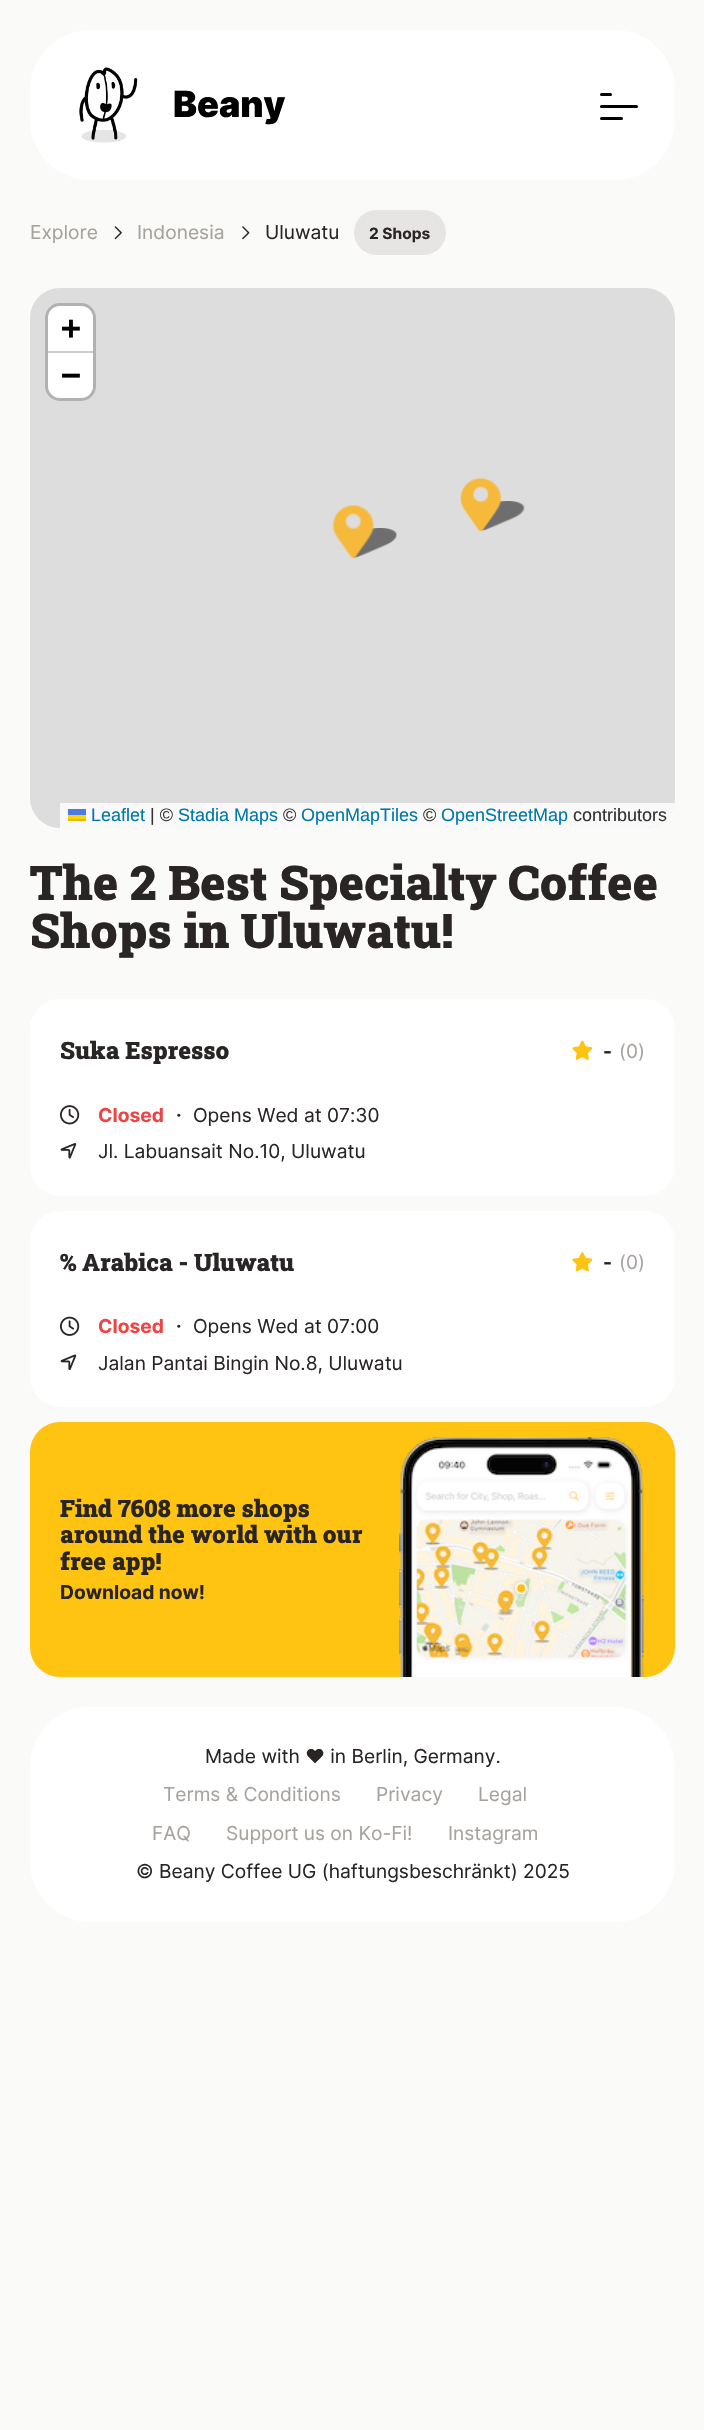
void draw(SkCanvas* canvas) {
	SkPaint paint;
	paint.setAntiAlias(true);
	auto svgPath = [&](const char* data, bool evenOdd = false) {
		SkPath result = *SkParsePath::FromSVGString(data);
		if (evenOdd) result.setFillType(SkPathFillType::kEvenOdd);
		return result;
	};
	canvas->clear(0xfffafaf9);
	paint.setColor(0xffffffff);
	canvas->drawRoundRect(SkRect::MakeXYWH(30, 30, 645, 150), 60, 60, paint);
	canvas->drawImageRect(SkImages::DeferredFromEncodedData(SkData::MakeFromFileName("img1.png")), SkRect::MakeXYWH(79, 67, 59, 76), SkSamplingOptions());
	SkFont f1(fontMgr->matchFamilyStyle("Inter", SkFontStyle(900, SkFontStyle::kNormal_Width, SkFontStyle::kUpright_Slant)), 36);
	f1.setSubpixel(true);
	paint.setColor(0xff000000);
	canvas->drawString("Beany", 173, 117, f1, paint);
	canvas->drawRoundRect(SkRect::MakeXYWH(600, 93, 12, 3), 1.5, 1.5, paint);
	canvas->drawRoundRect(SkRect::MakeXYWH(600, 105, 38, 3), 1.5, 1.5, paint);
	canvas->drawRoundRect(SkRect::MakeXYWH(600, 117, 23, 3), 1.5, 1.5, paint);
	SkFont f2(fontMgr->matchFamilyStyle("Inter", SkFontStyle::Normal()), 19.2);
	f2.setSubpixel(true);
	paint.setColor(0xffa8a29e);
	canvas->drawString("Explore", 30, 239, f2, paint);
	canvas->drawImageRect(SkImages::DeferredFromEncodedData(SkData::MakeFromFileName("img2.png")), SkRect::MakeXYWH(114, 226, 8, 14), SkSamplingOptions());
	canvas->drawString("Indonesia", 137, 239, f2, paint);
	canvas->drawImageRect(SkImages::DeferredFromEncodedData(SkData::MakeFromFileName("img3.png")), SkRect::MakeXYWH(242, 226, 8, 14), SkSamplingOptions());
	paint.setColor(0xff292524);
	canvas->drawString("Uluwatu", 265, 239, f2, paint);
	paint.setColor(0xffe7e5e4);
	canvas->drawRoundRect(SkRect::MakeXYWH(354, 210, 92, 45), 22.5, 22.5, paint);
	SkFont f3(fontMgr->matchFamilyStyle("Inter", SkFontStyle::Bold()), 15.5);
	f3.setSubpixel(true);
	paint.setColor(0xff292524);
	canvas->drawString("2 Shops", 369, 239, f3, paint);
	paint.setColor(0xffdddddd);
	canvas->drawRoundRect(SkRect::MakeXYWH(30, 288, 645, 540), 30, 30, paint);
	paint.setStroke(true);
	paint.setStrokeWidth(3);
	paint.setColor(0xffb1b1b1);
	canvas->drawRoundRect(SkRect::MakeXYWH(46.5, 304.5, 48, 95), 13.5, 13.5, paint);
	paint.setStroke(false);
	paint.setColor(0xffffffff);
	canvas->drawPath(svgPath("M60 306H81C87.5 306 93 311.5 93 318V353H48V318C48 311.5 53.5 306 60 306Z"), paint);
	paint.setColor(0xffcccccc);
	canvas->drawRect(SkRect::MakeXYWH(48, 351, 45, 2), paint);
	SkFont f4(fontMgr->matchFamilyStyle("DejaVu Sans Mono", SkFontStyle::Bold()), 33);
	f4.setSubpixel(true);
	paint.setColor(0xff000000);
	canvas->drawString("+", 61, 339, f4, paint);
	paint.setColor(0xffffffff);
	canvas->drawPath(svgPath("M48 353H93V386C93 392.5 87.5 398 81 398H60C53.5 398 48 392.5 48 386Z"), paint);
	paint.setColor(0xff000000);
	canvas->drawString("−", 61, 386, f4, paint);
	canvas->save();
	canvas->clipPath(svgPath("M60 288H645C661.5 288 675 301.5 675 318V798C675 814.5 661.5 828 645 828H60C43.5 828 30 814.5 30 798V318C30 301.5 43.5 288 60 288Z"), true);
	paint.setColor(0xccffffff);
	canvas->drawRect(SkRect::MakeXYWH(60, 803, 615, 25), paint);
	canvas->restore();
	SkFont f5(fontMgr->matchFamilyStyle("Liberation Sans", SkFontStyle::Normal()), 18);
	f5.setSubpixel(true);
	paint.setColor(0xff0078a8);
	canvas->drawString("Leaflet", 91, 821, f5, paint);
	paint.setColor(0xff4c7be1);
	canvas->drawRect(SkRect::MakeXYWH(68, 809, 18, 6), paint);
	paint.setColor(0xffffd500);
	canvas->drawRect(SkRect::MakeXYWH(68, 815, 18, 4), paint);
	paint.setColor(0xffe0bc00);
	canvas->drawRect(SkRect::MakeXYWH(68, 819, 18, 2), paint);
	paint.setColor(0xff333333);
	canvas->drawString("| ©", 150, 821, f5, paint);
	paint.setColor(0xff0078a8);
	canvas->drawString("Stadia Maps", 178, 821, f5, paint);
	paint.setColor(0xff333333);
	canvas->drawString("©", 283, 821, f5, paint);
	paint.setColor(0xff0078a8);
	canvas->drawString("OpenMapTiles", 301, 821, f5, paint);
	paint.setColor(0xff333333);
	canvas->drawString("©", 423, 821, f5, paint);
	paint.setColor(0xff0078a8);
	canvas->drawString("OpenStreetMap", 441, 821, f5, paint);
	canvas->save();
	canvas->clipPath(svgPath("M60 288H645C661.5 288 675 301.5 675 318V798C675 814.5 661.5 828 645 828H60C43.5 828 30 814.5 30 798V318C30 301.5 43.5 288 60 288Z"), true);
	paint.setColor(0xff333333);
	canvas->drawString("contributors", 573, 821, f5, paint);
	canvas->restore();
	canvas->drawImageRect(SkImages::DeferredFromEncodedData(SkData::MakeFromFileName("img7.png")), SkRect::MakeXYWH(346, 528, 51, 30), SkSamplingOptions());
	canvas->drawImageRect(SkImages::DeferredFromEncodedData(SkData::MakeFromFileName("img4.png")), SkRect::MakeXYWH(332, 505, 42, 54), SkSamplingOptions());
	canvas->drawImageRect(SkImages::DeferredFromEncodedData(SkData::MakeFromFileName("img6.png")), SkRect::MakeXYWH(473, 501, 52, 30), SkSamplingOptions());
	canvas->drawImageRect(SkImages::DeferredFromEncodedData(SkData::MakeFromFileName("img5.png")), SkRect::MakeXYWH(460, 478, 41, 54), SkSamplingOptions());
	SkFont f6(fontMgr->matchFamilyStyle("Roboto Slab", SkFontStyle(900, SkFontStyle::kNormal_Width, SkFontStyle::kUpright_Slant)), 48);
	f6.setSubpixel(true);
	paint.setColor(0xff292524);
	canvas->drawString("The 2 Best Specialty Coffee", 30, 900, f6, paint);
	canvas->drawString("Shops in Uluwatu!", 30, 948, f6, paint);
	paint.setColor(0xffffffff);
	canvas->drawRoundRect(SkRect::MakeXYWH(30, 999, 645, 197), 30, 30, paint);
	SkFont f7(fontMgr->matchFamilyStyle("Roboto Slab", SkFontStyle(900, SkFontStyle::kNormal_Width, SkFontStyle::kUpright_Slant)), 24);
	f7.setSubpixel(true);
	paint.setColor(0xff292524);
	canvas->drawString("Suka Espresso", 60, 1059, f7, paint);
	canvas->drawImageRect(SkImages::DeferredFromEncodedData(SkData::MakeFromFileName("img8.png")), SkRect::MakeXYWH(572, 1040, 21, 20), SkSamplingOptions());
	SkFont f8(fontMgr->matchFamilyStyle("Inter", SkFontStyle::Bold()), 19.2);
	f8.setSubpixel(true);
	canvas->drawString("-", 603, 1058, f8, paint);
	paint.setColor(0xffa8a29e);
	canvas->drawString("(0)", 619, 1058, f2, paint);
	canvas->drawImageRect(SkImages::DeferredFromEncodedData(SkData::MakeFromFileName("img9.png")), SkRect::MakeXYWH(60, 1105, 20, 20), SkSamplingOptions());
	paint.setColor(0xffef4444);
	canvas->drawString("Closed", 98, 1122, f8, paint);
	SkFont f9(fontMgr->matchFamilyStyle("WenQuanYi Zen Hei", SkFontStyle(500, SkFontStyle::kNormal_Width, SkFontStyle::kUpright_Slant)), 19.2);
	f9.setSubpixel(true);
	paint.setColor(0xff292524);
	canvas->drawString("・", 169, 1122, f9, paint);
	canvas->drawString("Opens Wed at 07:30", 193, 1122, f2, paint);
	canvas->drawImageRect(SkImages::DeferredFromEncodedData(SkData::MakeFromFileName("img10.png")), SkRect::MakeXYWH(60, 1143, 17, 16), SkSamplingOptions());
	canvas->drawString("Jl. Labuansait No.10, Uluwatu", 98, 1158, f2, paint);
	paint.setColor(0xffffffff);
	canvas->drawRoundRect(SkRect::MakeXYWH(30, 1211, 645, 196), 30, 30, paint);
	paint.setColor(0xff292524);
	canvas->drawString("% Arabica - Uluwatu", 60, 1271, f7, paint);
	canvas->drawImageRect(SkImages::DeferredFromEncodedData(SkData::MakeFromFileName("img11.png")), SkRect::MakeXYWH(572, 1252, 21, 20), SkSamplingOptions());
	canvas->drawString("-", 603, 1269, f8, paint);
	paint.setColor(0xffa8a29e);
	canvas->drawString("(0)", 619, 1269, f2, paint);
	canvas->drawImageRect(SkImages::DeferredFromEncodedData(SkData::MakeFromFileName("img12.png")), SkRect::MakeXYWH(60, 1316, 20, 20), SkSamplingOptions());
	paint.setColor(0xffef4444);
	canvas->drawString("Closed", 98, 1333, f8, paint);
	paint.setColor(0xff292524);
	canvas->drawString("・", 169, 1333, f9, paint);
	canvas->drawString("Opens Wed at 07:00", 193, 1333, f2, paint);
	canvas->drawImageRect(SkImages::DeferredFromEncodedData(SkData::MakeFromFileName("img13.png")), SkRect::MakeXYWH(60, 1354, 17, 16), SkSamplingOptions());
	canvas->drawString("Jalan Pantai Bingin No.8, Uluwatu", 98, 1370, f2, paint);
	paint.setColor(0xffffc312);
	canvas->drawRoundRect(SkRect::MakeXYWH(30, 1422, 645, 255), 30, 30, paint);
	paint.setColor(0xff292524);
	canvas->drawString("Find 7608 more shops", 60, 1517, f7, paint);
	canvas->drawString("around the world with our", 60, 1543, f7, paint);
	canvas->drawString("free app!", 60, 1570, f7, paint);
	canvas->drawString("Download now!", 60, 1599, f8, paint);
	canvas->drawImageRect(SkImages::DeferredFromEncodedData(SkData::MakeFromFileName("img14.png")), SkRect::MakeXYWH(399, 1437, 245, 240), SkSamplingOptions());
	paint.setColor(0xffffffff);
	canvas->drawRoundRect(SkRect::MakeXYWH(30, 1707, 645, 215), 60, 60, paint);
	paint.setColor(0xff292524);
	canvas->drawString("Made with ♥ in Berlin, Germany.", 205, 1763, f2, paint);
	paint.setColor(0xffa8a29e);
	canvas->drawString("Terms & Conditions", 163, 1801, f2, paint);
	canvas->drawString("Privacy", 376, 1801, f2, paint);
	canvas->drawString("Legal", 478, 1801, f2, paint);
	canvas->drawString("FAQ", 152, 1840, f2, paint);
	canvas->drawString("Support us on Ko-Fi!", 226, 1840, f2, paint);
	canvas->drawString("Instagram", 448, 1840, f2, paint);
	paint.setColor(0xff292524);
	canvas->drawString("© Beany Coffee UG (haftungsbeschränkt) 2025", 136, 1878, f2, paint);
}
